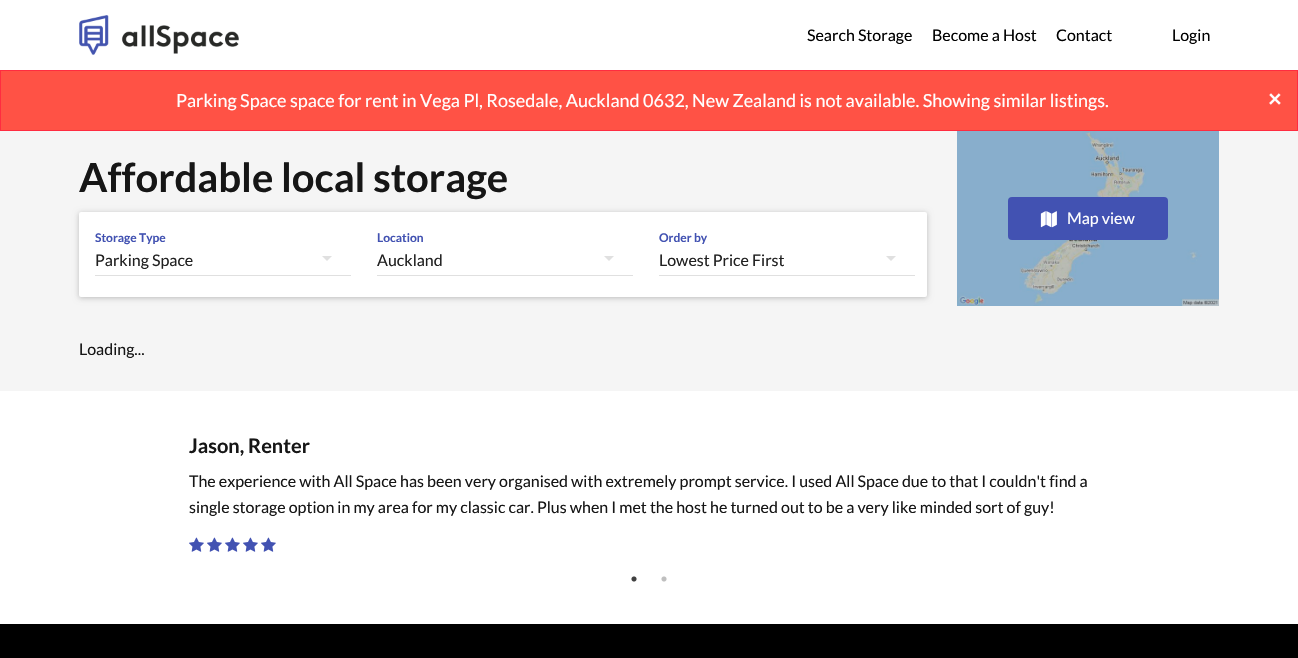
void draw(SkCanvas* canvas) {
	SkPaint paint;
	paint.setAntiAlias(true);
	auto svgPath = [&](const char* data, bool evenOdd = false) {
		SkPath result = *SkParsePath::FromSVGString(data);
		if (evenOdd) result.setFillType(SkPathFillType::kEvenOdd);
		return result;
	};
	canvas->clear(0xffffffff);
	canvas->drawImageRect(SkImages::DeferredFromEncodedData(SkData::MakeFromFileName("img1.png")), SkRect::MakeXYWH(79, 15, 160, 40), SkSamplingOptions());
	SkFont f1(fontMgr->matchFamilyStyle("Lato", SkFontStyle::Normal()), 16);
	f1.setSubpixel(true);
	paint.setColor(0xff000000);
	canvas->drawString("Search Storage", 807, 41, f1, paint);
	canvas->drawString("Become a Host", 932, 41, f1, paint);
	canvas->drawString("Contact", 1056, 41, f1, paint);
	canvas->drawString("Login", 1172, 41, f1, paint);
	paint.setColor(0xffff5245);
	canvas->drawRect(SkRect::MakeXYWH(0.5, 70.5, 1297, 60), paint);
	paint.setStroke(true);
	paint.setStrokeWidth(1);
	paint.setColor(0xffff2c40);
	canvas->drawRect(SkRect::MakeXYWH(0.5, 70.5, 1297, 60), paint);
	SkFont f2(fontMgr->matchFamilyStyle("Lato", SkFontStyle::Normal()), 18);
	f2.setSubpixel(true);
	paint.setStroke(false);
	paint.setColor(0xffffffff);
	canvas->drawString("Parking Space space for rent in Vega Pl, Rosedale, Auckland 0632, New Zealand is not available. Showing similar listings.", 176, 107, f2, paint);
	SkFont f3(fontMgr->matchFamilyStyle("Lato", SkFontStyle::Bold()), 24);
	f3.setSubpixel(true);
	canvas->drawString("×", 1268, 107, f3, paint);
	paint.setColor(0xfff5f5f5);
	canvas->drawRect(SkRect::MakeXYWH(0, 131, 1298, 260), paint);
	SkFont f4(fontMgr->matchFamilyStyle("Lato", SkFontStyle::Bold()), 40);
	f4.setSubpixel(true);
	paint.setColor(0xff161616);
	canvas->drawString("Affordable local storage", 79, 192, f4, paint);
	paint.setColor(0x1f000000);
	paint.setMaskFilter(SkMaskFilter::MakeBlur(kNormal_SkBlurStyle, 2));
	canvas->drawRoundRect(SkRect::MakeXYWH(79, 213, 848, 85), 2, 2, paint);
	paint.setMaskFilter(nullptr);
	paint.setMaskFilter(SkMaskFilter::MakeBlur(kNormal_SkBlurStyle, 3));
	canvas->drawRoundRect(SkRect::MakeXYWH(79, 213, 848, 85), 2, 2, paint);
	paint.setMaskFilter(nullptr);
	paint.setColor(0xffffffff);
	canvas->drawRoundRect(SkRect::MakeXYWH(79, 212, 848, 85), 2, 2, paint);
	SkFont f5(fontMgr->matchFamilyStyle("Lato", SkFontStyle::Bold()), 12);
	f5.setSubpixel(true);
	paint.setColor(0xff4252b2);
	canvas->drawString("Storage Type", 95, 242, f5, paint);
	paint.setColor(0xff212121);
	canvas->drawString("Parking Space", 95, 266, f1, paint);
	paint.setColor(0xffe0e0e0);
	canvas->drawPath(svgPath("M322 256L327 261L332 256Z"), paint);
	canvas->drawRect(SkRect::MakeXYWH(95, 275, 256, 1), paint);
	paint.setColor(0xff4252b2);
	canvas->drawString("Location", 377, 242, f5, paint);
	paint.setColor(0xff212121);
	canvas->drawString("Auckland", 377, 266, f1, paint);
	paint.setColor(0xffe0e0e0);
	canvas->drawPath(svgPath("M604 256L609 261L614 256Z"), paint);
	canvas->drawRect(SkRect::MakeXYWH(377, 275, 256, 1), paint);
	paint.setColor(0xff4252b2);
	canvas->drawString("Order by", 659, 242, f5, paint);
	paint.setColor(0xff212121);
	canvas->drawString("Lowest Price First", 659, 266, f1, paint);
	paint.setColor(0xffe0e0e0);
	canvas->drawPath(svgPath("M886 256L891 261L896 256Z"), paint);
	canvas->drawRect(SkRect::MakeXYWH(659, 275, 256, 1), paint);
	canvas->drawImageRect(SkImages::DeferredFromEncodedData(SkData::MakeFromFileName("img2.png")), SkRect::MakeXYWH(957, 131, 262, 175), SkSamplingOptions());
	paint.setColor(0xff4252b2);
	canvas->drawRoundRect(SkRect::MakeXYWH(1008, 197, 160, 43), 4, 4, paint);
	canvas->drawImageRect(SkImages::DeferredFromEncodedData(SkData::MakeFromFileName("img3.png")), SkRect::MakeXYWH(1040, 211, 17, 17), SkSamplingOptions());
	paint.setColor(0xffffffff);
	canvas->drawString("Map view", 1067, 224, f1, paint);
	paint.setColor(0xff161616);
	canvas->drawString("Loading...", 79, 355, f1, paint);
	SkFont f6(fontMgr->matchFamilyStyle("Lato", SkFontStyle::Bold()), 20);
	f6.setSubpixel(true);
	canvas->drawString("Jason, Renter", 189, 453, f6, paint);
	canvas->drawString("The experience with All Space has been very organised with extremely prompt service. I used All Space due to that I couldn't find a", 189, 487, f1, paint);
	canvas->drawString("single storage option in my area for my classic car. Plus when I met the host he turned out to be a very like minded sort of guy!", 189, 513, f1, paint);
	canvas->drawImageRect(SkImages::DeferredFromEncodedData(SkData::MakeFromFileName("img4.png")), SkRect::MakeXYWH(189, 537, 15, 15), SkSamplingOptions());
	canvas->drawImageRect(SkImages::DeferredFromEncodedData(SkData::MakeFromFileName("img4.png")), SkRect::MakeXYWH(207, 537, 15, 15), SkSamplingOptions());
	canvas->drawImageRect(SkImages::DeferredFromEncodedData(SkData::MakeFromFileName("img4.png")), SkRect::MakeXYWH(225, 537, 15, 15), SkSamplingOptions());
	canvas->drawImageRect(SkImages::DeferredFromEncodedData(SkData::MakeFromFileName("img4.png")), SkRect::MakeXYWH(243, 537, 15, 15), SkSamplingOptions());
	canvas->drawImageRect(SkImages::DeferredFromEncodedData(SkData::MakeFromFileName("img4.png")), SkRect::MakeXYWH(261, 537, 15, 15), SkSamplingOptions());
	canvas->drawImageRect(SkImages::DeferredFromEncodedData(SkData::MakeFromFileName("img5.png")), SkRect::MakeXYWH(631, 576, 6, 6), SkSamplingOptions());
	canvas->drawImageRect(SkImages::DeferredFromEncodedData(SkData::MakeFromFileName("img6.png")), SkRect::MakeXYWH(661, 576, 6, 6), SkSamplingOptions());
	paint.setColor(0xff000000);
	canvas->drawRect(SkRect::MakeXYWH(0, 624, 1298, 34), paint);
}
